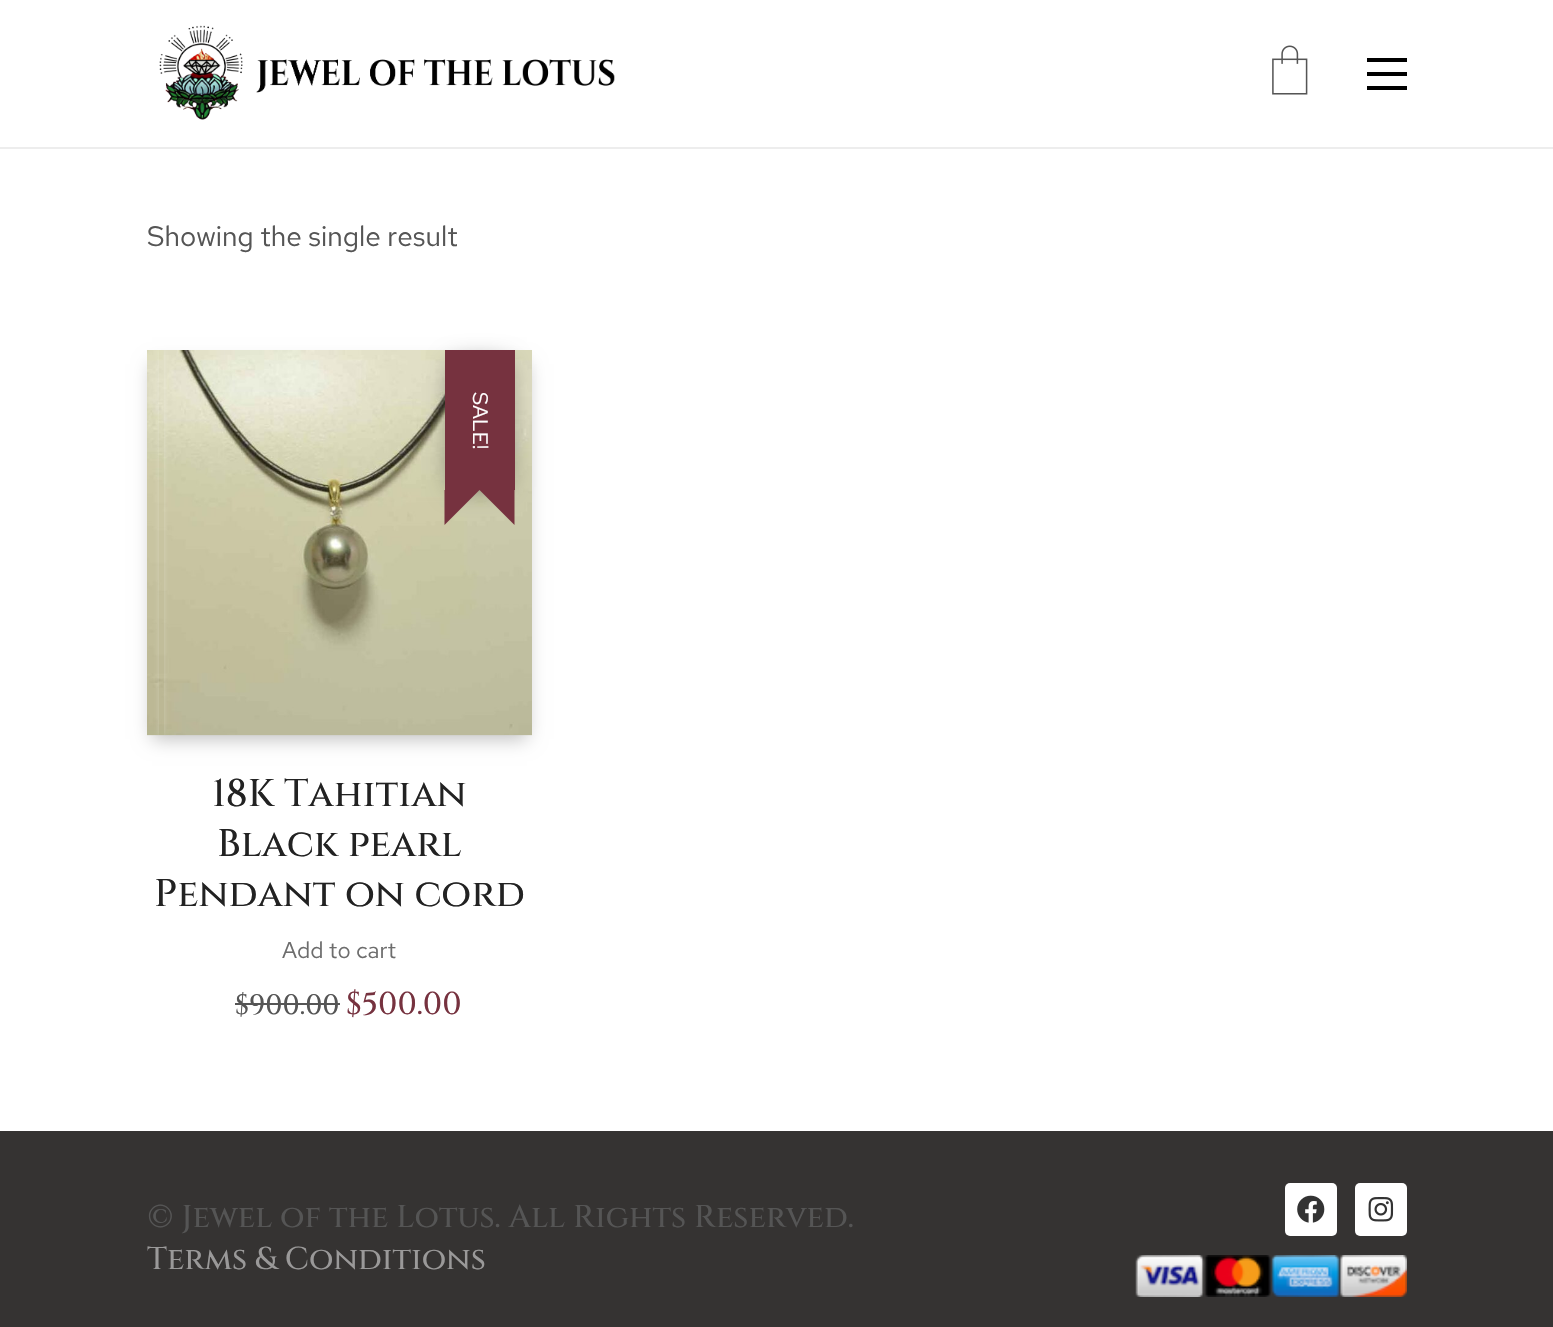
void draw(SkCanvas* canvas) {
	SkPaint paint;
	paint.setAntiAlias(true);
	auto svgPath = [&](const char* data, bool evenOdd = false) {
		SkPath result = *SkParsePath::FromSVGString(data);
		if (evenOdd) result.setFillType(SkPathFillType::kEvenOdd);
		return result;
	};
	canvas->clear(0xffffffff);
	paint.setColor(0x12000000);
	canvas->drawRect(SkRect::MakeXYWH(0, 147, 1553, 2), paint);
	canvas->drawImageRect(SkImages::DeferredFromEncodedData(SkData::MakeFromFileName("img1.png")), SkRect::MakeXYWH(159, 25, 456, 95), SkSamplingOptions());
	canvas->drawImageRect(SkImages::DeferredFromEncodedData(SkData::MakeFromFileName("img2.png")), SkRect::MakeXYWH(1272, 45, 36, 50), SkSamplingOptions());
	paint.setColor(0xff000000);
	canvas->drawRect(SkRect::MakeXYWH(1367, 58, 40, 4), paint);
	canvas->drawRect(SkRect::MakeXYWH(1367, 72, 40, 4), paint);
	canvas->drawRect(SkRect::MakeXYWH(1367, 86, 40, 4), paint);
	SkFont f1(fontMgr->matchFamilyStyle("Red Hat Text", SkFontStyle::Normal()), 28);
	f1.setSubpixel(true);
	paint.setColor(0xff555555);
	canvas->drawString("Showing the single result", 147, 246, f1, paint);
	paint.setColor(0x40000000);
	paint.setMaskFilter(SkMaskFilter::MakeBlur(kNormal_SkBlurStyle, 9));
	canvas->drawRect(SkRect::MakeXYWH(152, 364, 375, 375), paint);
	paint.setMaskFilter(nullptr);
	canvas->drawImageRect(SkImages::DeferredFromEncodedData(SkData::MakeFromFileName("img3.png")), SkRect::MakeXYWH(147, 350, 385, 386), SkSamplingOptions());
	canvas->save();
	canvas->clipRect(SkRect::MakeXYWH(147, 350, 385, 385));
	canvas->clipPath(svgPath("M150 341H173V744H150ZM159 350H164V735H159Z", true), true);
	paint.setColor(0x40ffffff);
	paint.setMaskFilter(SkMaskFilter::MakeBlur(kNormal_SkBlurStyle, 2.5));
	canvas->drawRect(SkRect::MakeXYWH(159, 350, 5, 385), paint);
	paint.setMaskFilter(nullptr);
	canvas->restore();
	paint.setColor(0x80000000);
	paint.setMaskFilter(SkMaskFilter::MakeBlur(kNormal_SkBlurStyle, 13));
	canvas->drawRect(SkRect::MakeXYWH(453, 364, 53, 123), paint);
	paint.setMaskFilter(nullptr);
	paint.setColor(0xff76323f);
	canvas->drawRect(SkRect::MakeXYWH(445, 350, 70, 140), paint);
	SkFont f2(fontMgr->matchFamilyStyle("Red Hat Text", SkFontStyle::Normal()), 21);
	f2.setSubpixel(true);
	paint.setColor(0xffffffff);
	canvas->save();
	canvas->rotate(90, 473, 392);
	canvas->drawString("SALE!", 473, 392, f2, paint);
	canvas->restore();
	paint.setColor(0xff76323f);
	canvas->drawPath(svgPath("M444.5 490H479.5L444.5 525Z"), paint);
	canvas->drawPath(svgPath("M479.5 490H514.5V525Z"), paint);
	SkFont f3(fontMgr->matchFamilyStyle("Cinzel", SkFontStyle(500, SkFontStyle::kNormal_Width, SkFontStyle::kUpright_Slant)), 38.5);
	f3.setSubpixel(true);
	paint.setColor(0xff222222);
	canvas->drawString("18K Tahitian", 212, 806, f3, paint);
	canvas->drawString("Black pearl", 217, 856, f3, paint);
	canvas->drawString("Pendant on cord", 154, 906, f3, paint);
	SkFont f4(fontMgr->matchFamilyStyle("Red Hat Text", SkFontStyle::Normal()), 22.75);
	f4.setSubpixel(true);
	paint.setColor(0xff6d6d6d);
	canvas->drawString("Add to cart", 282, 958, f4, paint);
	SkFont f5(fontMgr->matchFamilyStyle("Cinzel", SkFontStyle(500, SkFontStyle::kNormal_Width, SkFontStyle::kUpright_Slant)), 28);
	f5.setSubpixel(true);
	paint.setColor(0xff555555);
	canvas->drawString("$900.00", 235, 1014, f5, paint);
	canvas->drawRect(SkRect::MakeXYWH(235, 1003, 105, 2), paint);
	SkFont f6(fontMgr->matchFamilyStyle("Cinzel", SkFontStyle(500, SkFontStyle::kNormal_Width, SkFontStyle::kUpright_Slant)), 31.5);
	f6.setSubpixel(true);
	paint.setColor(0xff76323f);
	canvas->drawString("$500.00", 346, 1014, f6, paint);
	paint.setColor(0xff353332);
	canvas->drawRect(SkRect::MakeXYWH(0, 1131, 1553, 196), paint);
	paint.setColor(0xff555555);
	canvas->drawString("© Jewel of the Lotus. All Rights Reserved.", 147, 1227, f6, paint);
	paint.setColor(0xff9a9999);
	canvas->drawString("Terms & Conditions", 147, 1269, f6, paint);
	paint.setColor(0xffffffff);
	canvas->drawRoundRect(SkRect::MakeXYWH(1285, 1183, 52, 53), 5, 5, paint);
	canvas->drawImageRect(SkImages::DeferredFromEncodedData(SkData::MakeFromFileName("img4.png")), SkRect::MakeXYWH(1297, 1195, 28, 28), SkSamplingOptions());
	canvas->drawRoundRect(SkRect::MakeXYWH(1355, 1183, 52, 53), 5, 5, paint);
	canvas->drawImageRect(SkImages::DeferredFromEncodedData(SkData::MakeFromFileName("img5.png")), SkRect::MakeXYWH(1368, 1197, 26, 25), SkSamplingOptions());
	canvas->drawImageRect(SkImages::DeferredFromEncodedData(SkData::MakeFromFileName("img6.png")), SkRect::MakeXYWH(1135, 1255, 272, 42), SkSamplingOptions());
}
